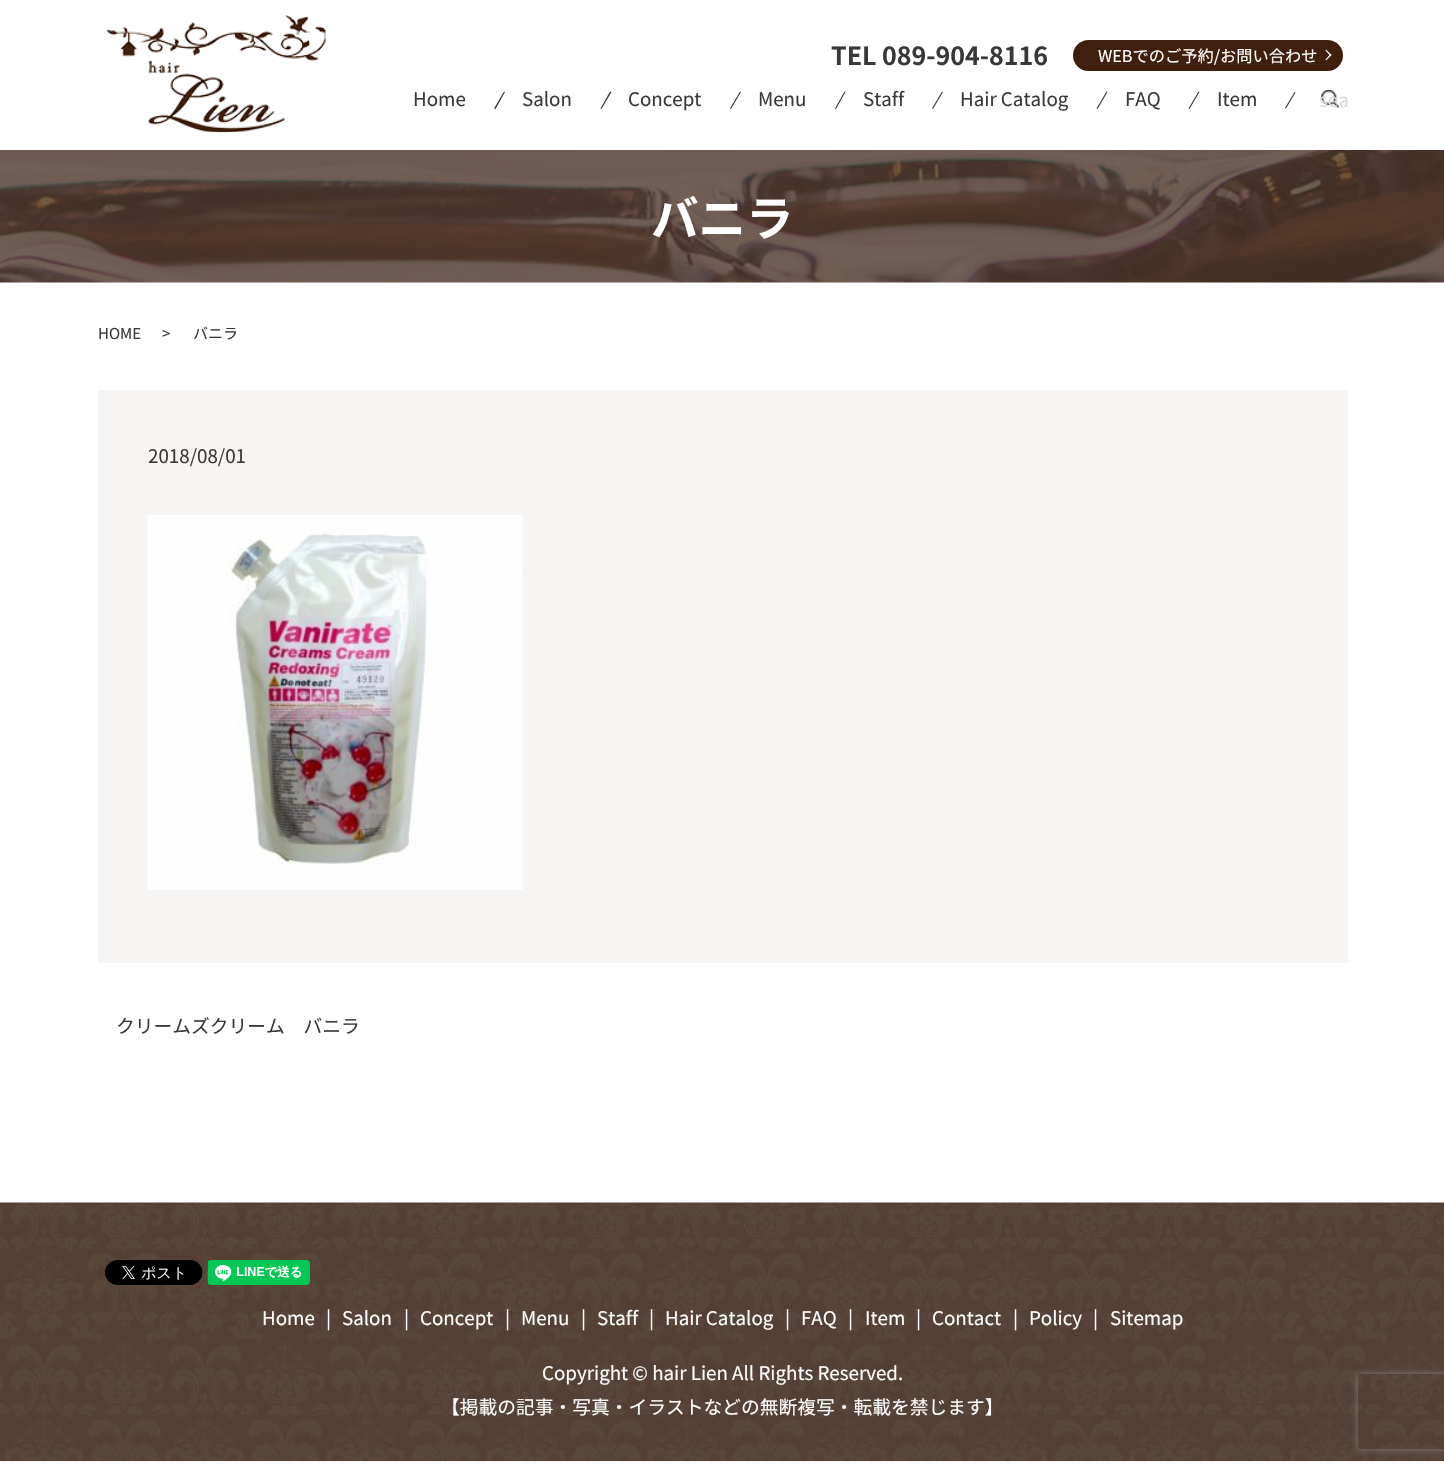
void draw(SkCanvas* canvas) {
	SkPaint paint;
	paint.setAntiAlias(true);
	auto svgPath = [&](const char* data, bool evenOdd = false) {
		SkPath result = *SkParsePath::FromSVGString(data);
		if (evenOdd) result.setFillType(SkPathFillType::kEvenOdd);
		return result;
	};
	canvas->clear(0xffffffff);
	canvas->drawImageRect(SkImages::DeferredFromEncodedData(SkData::MakeFromFileName("img1.png")), SkRect::MakeXYWH(107, 15, 219, 118), SkSamplingOptions());
	SkFont f1(fontMgr->matchFamilyStyle("Noto Sans JP", SkFontStyle::Bold()), 25);
	f1.setSubpixel(true);
	paint.setColor(0xff3a3837);
	canvas->drawString("TEL 089-904-8116", 831, 65, f1, paint);
	paint.setColor(0xff3f1f0d);
	canvas->drawRoundRect(SkRect::MakeXYWH(1073, 40, 270, 31), 15.5, 15.5, paint);
	SkFont f2(fontMgr->matchFamilyStyle("Noto Sans JP", SkFontStyle::Normal()), 16.25);
	f2.setSubpixel(true);
	paint.setColor(0xffffffff);
	canvas->drawString("WEBでのご予約/お問い合わせ", 1098, 62, f2, paint);
	canvas->drawPath(svgPath("M1326 49.5L1331.5 55L1330.5 56L1325.5 50.5Z"), paint);
	canvas->drawPath(svgPath("M1330.5 54L1331.5 55L1326 60.5L1325.5 59.5Z"), paint);
	SkFont f3(fontMgr->matchFamilyStyle("Noto Sans JP", SkFontStyle::Normal()), 18.75);
	f3.setSubpixel(true);
	paint.setColor(0xff3a3837);
	canvas->drawString("Home", 413, 106, f3, paint);
	canvas->drawPath(svgPath("M504 91.5L505 92L495.5 109L494 108.5Z"), paint);
	canvas->drawString("Salon", 522, 106, f3, paint);
	canvas->drawPath(svgPath("M610 91.5L611.5 92L601.5 109L600.5 108.5Z"), paint);
	canvas->drawString("Concept", 628, 106, f3, paint);
	canvas->drawPath(svgPath("M740 91.5L741 92L731 109L730 108.5Z"), paint);
	canvas->drawString("Menu", 758, 106, f3, paint);
	canvas->drawPath(svgPath("M844.5 91.5L845.5 92L836 109L835 108.5Z"), paint);
	canvas->drawString("Staff", 863, 106, f3, paint);
	canvas->drawPath(svgPath("M942 91.5L943 92L933 109L932 108.5Z"), paint);
	canvas->drawString("Hair Catalog", 960, 106, f3, paint);
	canvas->drawPath(svgPath("M1106.5 91.5L1107.5 92L1097.5 109L1096.5 108.5Z"), paint);
	canvas->drawString("FAQ", 1125, 106, f3, paint);
	canvas->drawPath(svgPath("M1198.5 91.5L1199.5 92L1189.5 109L1188.5 108.5Z"), paint);
	canvas->drawString("Item", 1217, 106, f3, paint);
	canvas->drawImageRect(SkImages::DeferredFromEncodedData(SkData::MakeFromFileName("img2.png")), SkRect::MakeXYWH(1321, 90, 18, 18), SkSamplingOptions());
	canvas->drawPath(svgPath("M1294.5 92L1295.5 92.5L1286 108.5L1285 108Z"), paint);
	paint.setColor(0xffdbdada);
	canvas->drawString("sea", 1319, 107, f3, paint);
	canvas->drawImageRect(SkImages::DeferredFromEncodedData(SkData::MakeFromFileName("img3.png")), SkRect::MakeXYWH(0, 150, 1444, 133), SkSamplingOptions());
	SkFont f4(fontMgr->matchFamilyStyle("Noto Sans JP", SkFontStyle::Bold()), 47.5);
	f4.setSubpixel(true);
	paint.setColor(0xffffffff);
	canvas->drawString("バニラ", 651, 236, f4, paint);
	SkFont f5(fontMgr->matchFamilyStyle("Noto Sans JP", SkFontStyle::Normal()), 15);
	f5.setSubpixel(true);
	paint.setColor(0xff3a3837);
	canvas->drawString("HOME", 98, 339, f5, paint);
	canvas->drawString(">", 162, 339, f5, paint);
	canvas->drawString("バニラ", 193, 339, f5, paint);
	paint.setColor(0xfff6f5f4);
	canvas->drawRect(SkRect::MakeXYWH(98, 390, 1250, 573), paint);
	paint.setColor(0xff3a3837);
	canvas->drawString("2018/08/01", 148, 463, f3, paint);
	canvas->drawImageRect(SkImages::DeferredFromEncodedData(SkData::MakeFromFileName("img4.png")), SkRect::MakeXYWH(147, 515, 376, 375), SkSamplingOptions());
	canvas->drawString("クリームズクリーム　バニラ", 116, 1033, f3, paint);
	canvas->drawImageRect(SkImages::DeferredFromEncodedData(SkData::MakeFromFileName("img5.png")), SkRect::MakeXYWH(0, 1202, 1444, 260), SkSamplingOptions());
	canvas->drawImageRect(SkImages::DeferredFromEncodedData(SkData::MakeFromFileName("img6.png")), SkRect::MakeXYWH(105, 1260, 98, 25), SkSamplingOptions());
	canvas->drawImageRect(SkImages::DeferredFromEncodedData(SkData::MakeFromFileName("img7.png")), SkRect::MakeXYWH(207, 1260, 103, 25), SkSamplingOptions());
	paint.setColor(0xffffffff);
	canvas->drawString("Home", 262, 1325, f3, paint);
	canvas->drawString("|", 326, 1325, f3, paint);
	canvas->drawString("Salon", 342, 1325, f3, paint);
	canvas->drawString("|", 404, 1325, f3, paint);
	canvas->drawString("Concept", 420, 1325, f3, paint);
	canvas->drawString("|", 505, 1325, f3, paint);
	canvas->drawString("Menu", 521, 1325, f3, paint);
	canvas->drawString("|", 581, 1325, f3, paint);
	canvas->drawString("Staff", 597, 1325, f3, paint);
	canvas->drawString("|", 649, 1325, f3, paint);
	canvas->drawString("Hair Catalog", 665, 1325, f3, paint);
	canvas->drawString("|", 785, 1325, f3, paint);
	canvas->drawString("FAQ", 801, 1325, f3, paint);
	canvas->drawString("|", 848, 1325, f3, paint);
	canvas->drawString("Item", 865, 1325, f3, paint);
	canvas->drawString("|", 916, 1325, f3, paint);
	canvas->drawString("Contact", 932, 1325, f3, paint);
	canvas->drawString("|", 1013, 1325, f3, paint);
	canvas->drawString("Policy", 1029, 1325, f3, paint);
	canvas->drawString("|", 1093, 1325, f3, paint);
	canvas->drawString("Sitemap", 1110, 1325, f3, paint);
	canvas->drawString("Copyright © hair Lien All Rights Reserved.", 542, 1380, f3, paint);
	canvas->drawString("【掲載の記事・写真・イラストなどの無断複写・転載を禁じます】", 441, 1414, f3, paint);
	canvas->save();
	canvas->clipPath(svgPath("M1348 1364H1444V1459H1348ZM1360.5 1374H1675.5C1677 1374 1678 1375 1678 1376.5V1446.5C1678 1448 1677 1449 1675.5 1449H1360.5C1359 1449 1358 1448 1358 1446.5V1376.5C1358 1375 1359 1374 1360.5 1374Z", true), true);
	paint.setColor(0xff808080);
	paint.setMaskFilter(SkMaskFilter::MakeBlur(kNormal_SkBlurStyle, 3));
	canvas->drawRoundRect(SkRect::MakeXYWH(1358, 1374, 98, 75), 2.5, 2.5, paint);
	paint.setMaskFilter(nullptr);
	canvas->restore();
}
